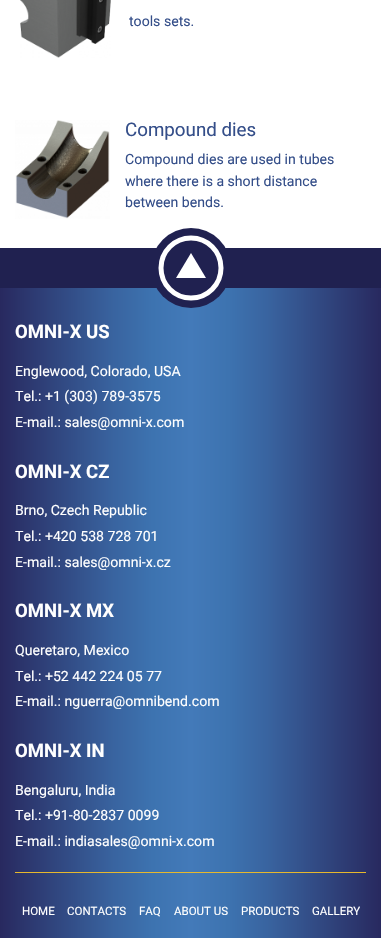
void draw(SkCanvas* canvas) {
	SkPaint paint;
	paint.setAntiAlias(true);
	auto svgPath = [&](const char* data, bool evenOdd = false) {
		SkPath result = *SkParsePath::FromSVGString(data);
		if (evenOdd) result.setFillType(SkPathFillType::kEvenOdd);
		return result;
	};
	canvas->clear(0xffffffff);
	{
		const SkColor colors[] = {0xff28295f, 0xff3964a0, 0xff3d73b0, 0xff437ab9, 0xff3d73b0, 0xff3964a0, 0xff28295f};
		const float stops[] = {0, 0.3, 0.4, 0.5, 0.6, 0.7, 1};
		const SkPoint ends[] = {{0, -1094}, {381, -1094}};
		paint.setShader(SkGradientShader::MakeLinear(ends, colors, stops, 7, SkTileMode::kClamp));
		paint.setAlpha(255);
	}
	canvas->drawRect(SkRect::MakeXYWH(0, 288, 381, 650), paint);
	canvas->drawImageRect(SkImages::DeferredFromEncodedData(SkData::MakeFromFileName("img1.png")), SkRect::MakeXYWH(20, 0, 91, 58), SkSamplingOptions());
	SkFont f1(fontMgr->matchFamilyStyle("Roboto", SkFontStyle::Normal()), 14.1);
	f1.setSubpixel(true);
	paint.setShader(nullptr);
	paint.setColor(0xff344e89);
	canvas->drawString("tools sets.", 129, 26, f1, paint);
	canvas->drawImageRect(SkImages::DeferredFromEncodedData(SkData::MakeFromFileName("img2.png")), SkRect::MakeXYWH(15, 120, 95, 99), SkSamplingOptions());
	SkFont f2(fontMgr->matchFamilyStyle("Roboto", SkFontStyle::Normal()), 18.75);
	f2.setSubpixel(true);
	canvas->drawString("Compound dies", 125, 136, f2, paint);
	canvas->drawString("Compound dies are used in tubes", 125, 164, f1, paint);
	canvas->drawString("where there is a short distance", 125, 186, f1, paint);
	canvas->drawString("between bends.", 125, 207, f1, paint);
	paint.setColor(0xff202150);
	canvas->drawRect(SkRect::MakeXYWH(0, 248, 381, 40), paint);
	canvas->drawCircle(191, 268, 40, paint);
	paint.setStroke(true);
	paint.setStrokeWidth(5);
	paint.setColor(0xffffffff);
	canvas->drawCircle(191, 268, 30, paint);
	paint.setStroke(false);
	canvas->drawPath(svgPath("M191 253L206 278H176Z"), paint);
	SkFont f3(fontMgr->matchFamilyStyle("Roboto", SkFontStyle::Bold()), 18.5);
	f3.setSubpixel(true);
	canvas->drawString("OMNI-X US", 15, 338, f3, paint);
	canvas->drawString("Englewood, Colorado, USA", 15, 376, f1, paint);
	canvas->drawString("Tel.: +1 (303) 789-3575", 15, 401, f1, paint);
	canvas->drawString("E-mail.: sales@omni-x.com", 15, 427, f1, paint);
	canvas->drawString("OMNI-X CZ", 15, 478, f3, paint);
	canvas->drawString("Brno, Czech Republic", 15, 515, f1, paint);
	canvas->drawString("Tel.: +420 538 728 701", 15, 541, f1, paint);
	canvas->drawString("E-mail.: sales@omni-x.cz", 15, 567, f1, paint);
	canvas->drawString("OMNI-X MX", 15, 617, f3, paint);
	canvas->drawString("Queretaro, Mexico", 15, 655, f1, paint);
	canvas->drawString("Tel.: +52 442 224 05 77", 15, 681, f1, paint);
	canvas->drawString("E-mail.: nguerra@omnibend.com", 15, 706, f1, paint);
	canvas->drawString("OMNI-X IN", 15, 757, f3, paint);
	canvas->drawString("Bengaluru, India", 15, 795, f1, paint);
	canvas->drawString("Tel.: +91-80-2837 0099", 15, 820, f1, paint);
	canvas->drawString("E-mail.: indiasales@omni-x.com", 15, 846, f1, paint);
	paint.setColor(0xffe6b82d);
	canvas->drawRect(SkRect::MakeXYWH(15, 872, 351, 1), paint);
	SkFont f4(fontMgr->matchFamilyStyle("Roboto", SkFontStyle::Normal()), 11.5);
	f4.setSubpixel(true);
	paint.setColor(0xffffffff);
	canvas->drawString("HOME", 22, 915, f4, paint);
	canvas->drawString("CONTACTS", 67, 915, f4, paint);
	canvas->drawString("FAQ", 139, 915, f4, paint);
	canvas->drawString("ABOUT US", 174, 915, f4, paint);
	canvas->drawString("PRODUCTS", 241, 915, f4, paint);
	canvas->drawString("GALLERY", 312, 915, f4, paint);
}
